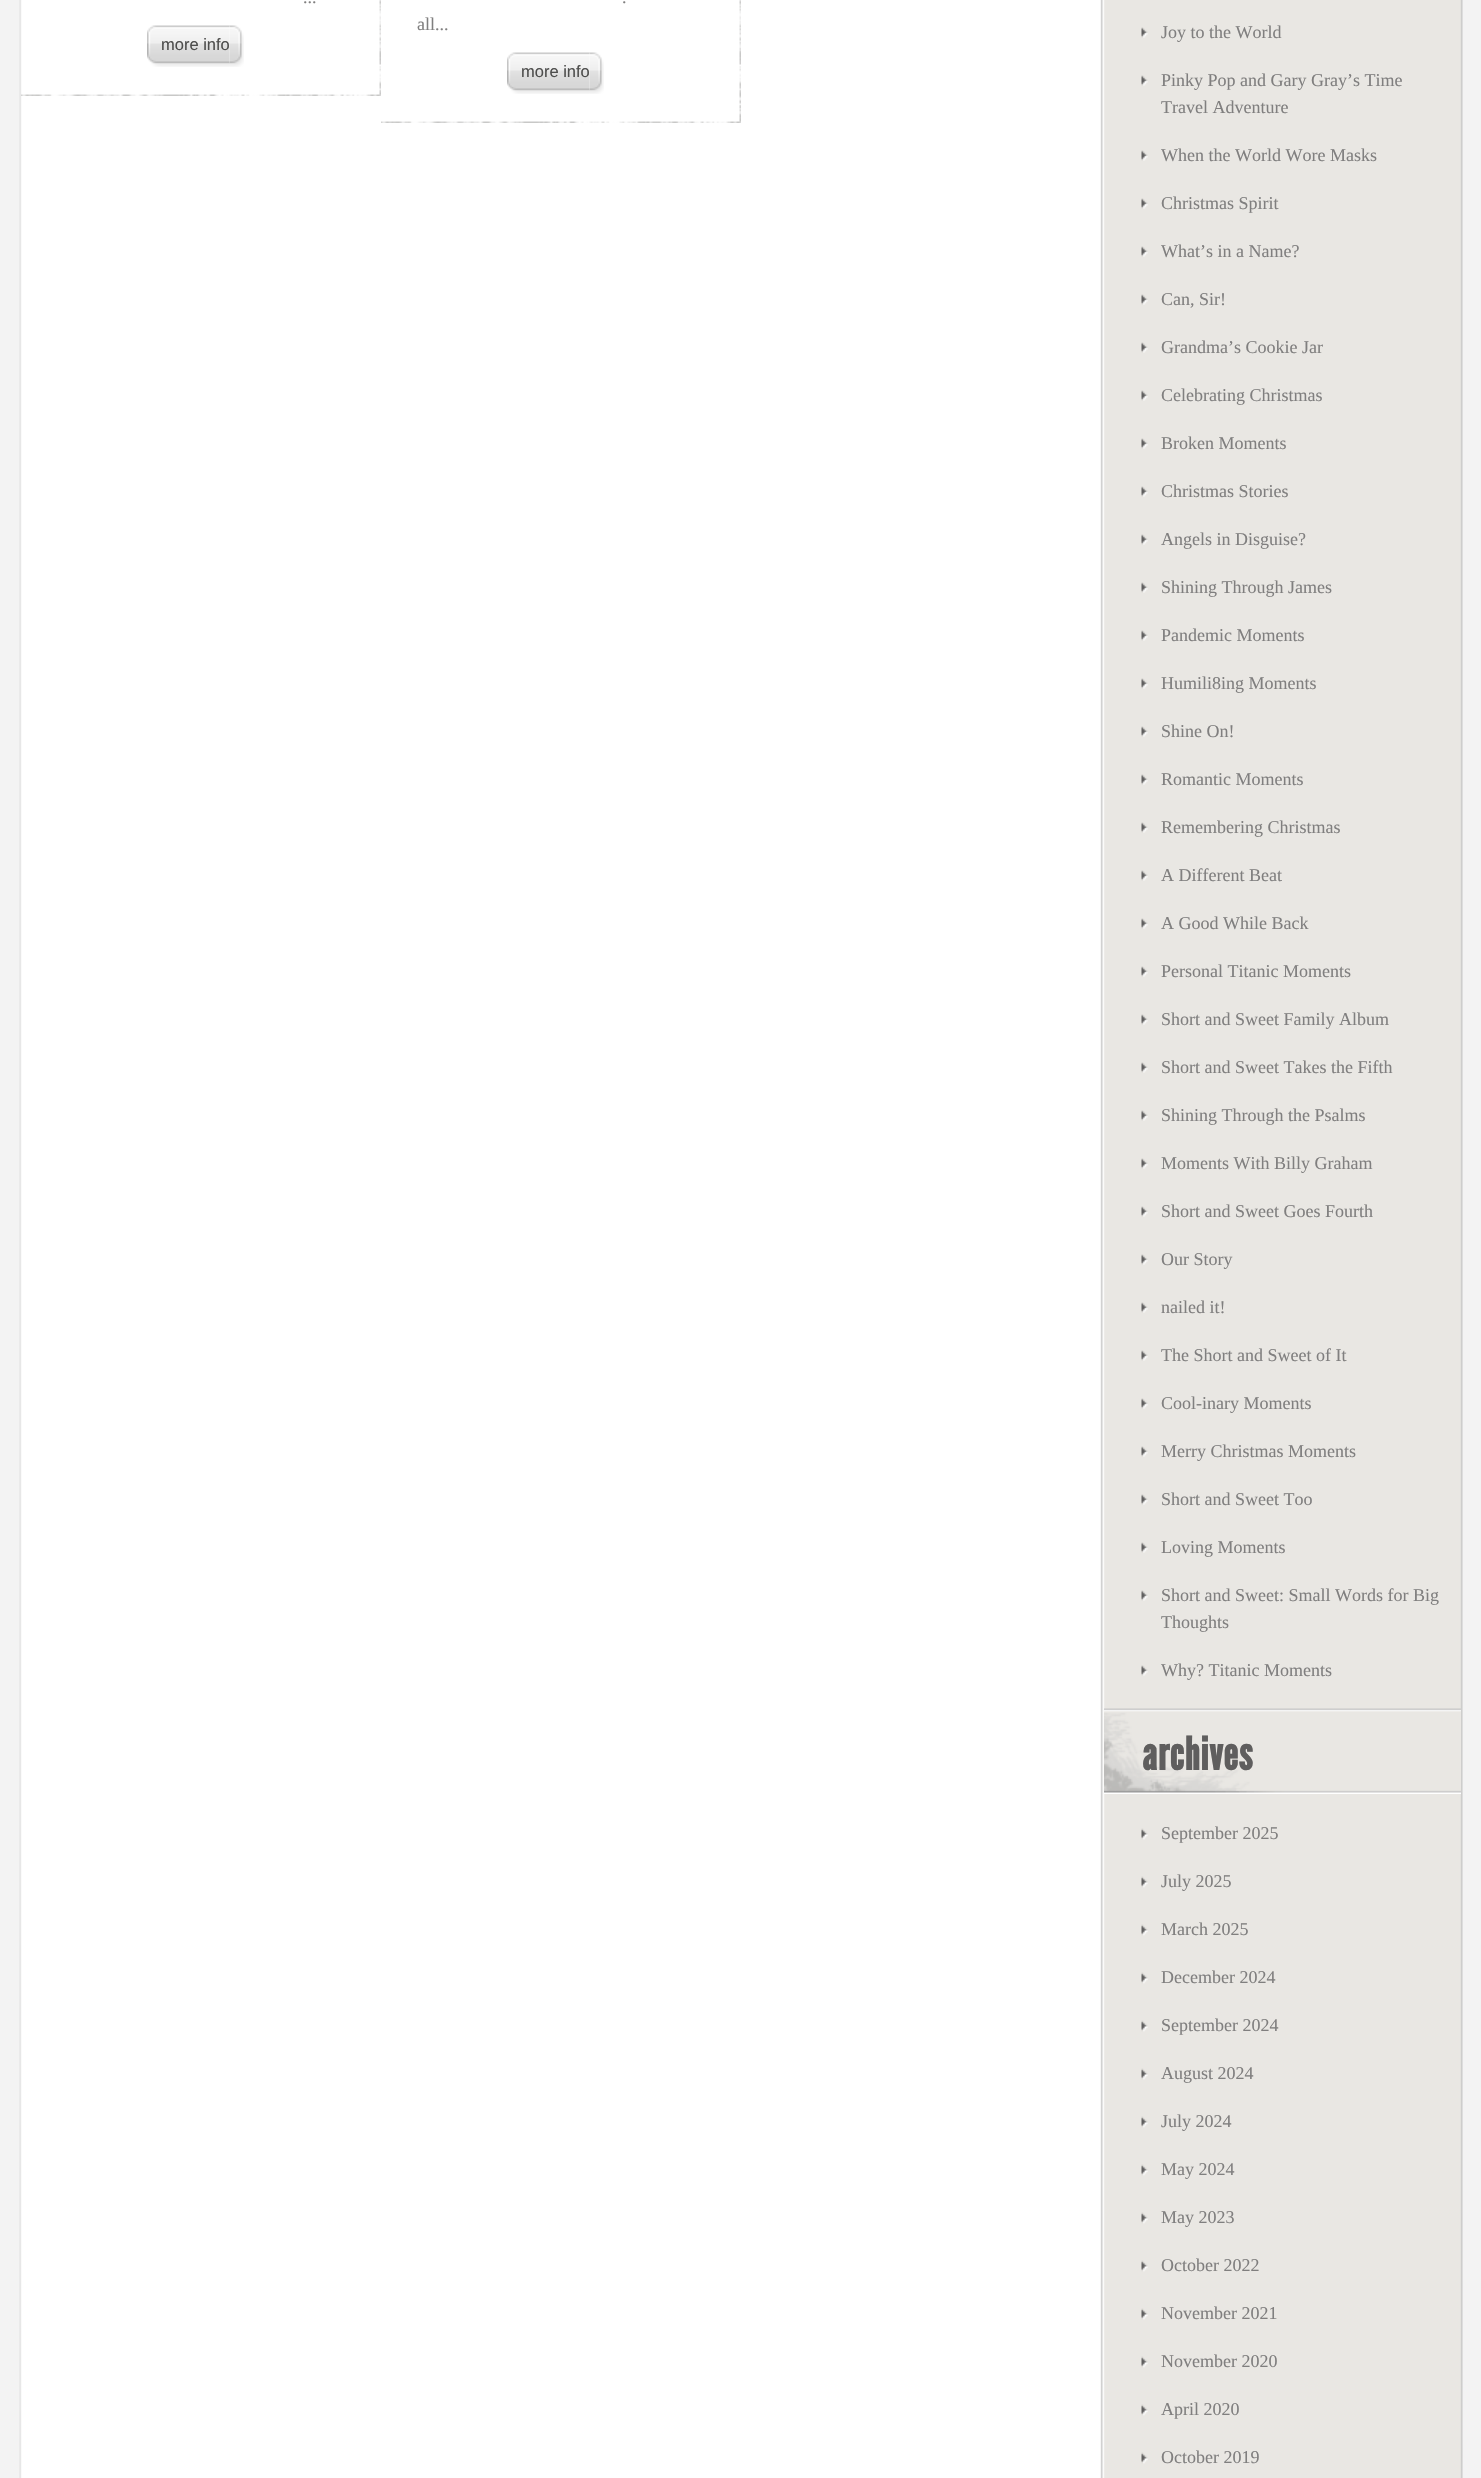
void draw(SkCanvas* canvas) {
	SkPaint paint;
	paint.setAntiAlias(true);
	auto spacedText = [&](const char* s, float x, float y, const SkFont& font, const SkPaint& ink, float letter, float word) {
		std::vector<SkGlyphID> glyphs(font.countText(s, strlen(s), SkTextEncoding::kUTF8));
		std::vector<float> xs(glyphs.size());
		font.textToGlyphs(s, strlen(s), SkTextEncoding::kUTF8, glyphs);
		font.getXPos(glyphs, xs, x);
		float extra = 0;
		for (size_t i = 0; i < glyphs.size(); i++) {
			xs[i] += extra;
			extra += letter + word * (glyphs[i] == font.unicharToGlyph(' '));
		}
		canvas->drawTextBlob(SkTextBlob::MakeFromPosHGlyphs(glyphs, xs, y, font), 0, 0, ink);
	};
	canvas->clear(0xfff3f3f3);
	canvas->drawImageRect(SkImages::DeferredFromEncodedData(SkData::MakeFromFileName("img1.png")), SkRect::MakeXYWH(19, 0, 1444, 2478), SkSamplingOptions());
	canvas->drawImageRect(SkImages::DeferredFromEncodedData(SkData::MakeFromFileName("img2.png")), SkRect::MakeXYWH(379, 0, 2, 95), SkSamplingOptions());
	canvas->drawImageRect(SkImages::DeferredFromEncodedData(SkData::MakeFromFileName("img3.png")), SkRect::MakeXYWH(21, 94, 360, 2), SkSamplingOptions());
	SkFont f1(fontMgr->matchFamilyStyle("Liberation Serif", SkFontStyle::Normal()), 18);
	f1.setSubpixel(true);
	paint.setColor(0xff807f7f);
	canvas->drawString("...", 303, 3, f1, paint);
	canvas->drawImageRect(SkImages::DeferredFromEncodedData(SkData::MakeFromFileName("img4.png")), SkRect::MakeXYWH(229, 25, 15, 42), SkSamplingOptions());
	canvas->drawImageRect(SkImages::DeferredFromEncodedData(SkData::MakeFromFileName("img5.png")), SkRect::MakeXYWH(147, 25, 83, 42), SkSamplingOptions());
	SkFont f2(fontMgr->matchFamilyStyle("Liberation Sans", SkFontStyle::Normal()), 16.5);
	f2.setSubpixel(true);
	paint.setColor(0xff4e4e4d);
	canvas->drawString("more info", 161, 50, f2, paint);
	canvas->drawImageRect(SkImages::DeferredFromEncodedData(SkData::MakeFromFileName("img6.png")), SkRect::MakeXYWH(739, 0, 2, 122), SkSamplingOptions());
	canvas->drawImageRect(SkImages::DeferredFromEncodedData(SkData::MakeFromFileName("img7.png")), SkRect::MakeXYWH(381, 121, 360, 2), SkSamplingOptions());
	paint.setColor(0xff807f7f);
	canvas->drawString(".", 622, 3, f1, paint);
	canvas->drawString("all...", 417, 30, f1, paint);
	canvas->drawImageRect(SkImages::DeferredFromEncodedData(SkData::MakeFromFileName("img4.png")), SkRect::MakeXYWH(589, 52, 15, 42), SkSamplingOptions());
	canvas->drawImageRect(SkImages::DeferredFromEncodedData(SkData::MakeFromFileName("img5.png")), SkRect::MakeXYWH(507, 52, 83, 42), SkSamplingOptions());
	paint.setColor(0xff4e4e4d);
	canvas->drawString("more info", 521, 77, f2, paint);
	canvas->drawImageRect(SkImages::DeferredFromEncodedData(SkData::MakeFromFileName("img8.png")), SkRect::MakeXYWH(1104, 1708, 357, 4), SkSamplingOptions());
	canvas->drawImageRect(SkImages::DeferredFromEncodedData(SkData::MakeFromFileName("img9.png")), SkRect::MakeXYWH(1141, 27, 7, 11), SkSamplingOptions());
	paint.setColor(0xff807f7f);
	canvas->drawString("Joy to the World", 1161, 38, f1, paint);
	canvas->drawImageRect(SkImages::DeferredFromEncodedData(SkData::MakeFromFileName("img9.png")), SkRect::MakeXYWH(1141, 75, 7, 11), SkSamplingOptions());
	canvas->drawString("Pinky Pop and Gary Gray’s Time", 1161, 86, f1, paint);
	canvas->drawString("Travel Adventure", 1161, 113, f1, paint);
	canvas->drawImageRect(SkImages::DeferredFromEncodedData(SkData::MakeFromFileName("img9.png")), SkRect::MakeXYWH(1141, 150, 7, 11), SkSamplingOptions());
	canvas->drawString("When the World Wore Masks", 1161, 161, f1, paint);
	canvas->drawImageRect(SkImages::DeferredFromEncodedData(SkData::MakeFromFileName("img9.png")), SkRect::MakeXYWH(1141, 198, 7, 11), SkSamplingOptions());
	canvas->drawString("Christmas Spirit", 1161, 209, f1, paint);
	canvas->drawImageRect(SkImages::DeferredFromEncodedData(SkData::MakeFromFileName("img9.png")), SkRect::MakeXYWH(1141, 246, 7, 11), SkSamplingOptions());
	canvas->drawString("What’s in a Name?", 1161, 257, f1, paint);
	canvas->drawImageRect(SkImages::DeferredFromEncodedData(SkData::MakeFromFileName("img9.png")), SkRect::MakeXYWH(1141, 294, 7, 11), SkSamplingOptions());
	canvas->drawString("Can, Sir!", 1161, 305, f1, paint);
	canvas->drawImageRect(SkImages::DeferredFromEncodedData(SkData::MakeFromFileName("img9.png")), SkRect::MakeXYWH(1141, 342, 7, 11), SkSamplingOptions());
	canvas->drawString("Grandma’s Cookie Jar", 1161, 353, f1, paint);
	canvas->drawImageRect(SkImages::DeferredFromEncodedData(SkData::MakeFromFileName("img9.png")), SkRect::MakeXYWH(1141, 390, 7, 11), SkSamplingOptions());
	canvas->drawString("Celebrating Christmas", 1161, 401, f1, paint);
	canvas->drawImageRect(SkImages::DeferredFromEncodedData(SkData::MakeFromFileName("img9.png")), SkRect::MakeXYWH(1141, 438, 7, 11), SkSamplingOptions());
	canvas->drawString("Broken Moments", 1161, 449, f1, paint);
	canvas->drawImageRect(SkImages::DeferredFromEncodedData(SkData::MakeFromFileName("img9.png")), SkRect::MakeXYWH(1141, 486, 7, 11), SkSamplingOptions());
	canvas->drawString("Christmas Stories", 1161, 497, f1, paint);
	canvas->drawImageRect(SkImages::DeferredFromEncodedData(SkData::MakeFromFileName("img9.png")), SkRect::MakeXYWH(1141, 534, 7, 11), SkSamplingOptions());
	canvas->drawString("Angels in Disguise?", 1161, 545, f1, paint);
	canvas->drawImageRect(SkImages::DeferredFromEncodedData(SkData::MakeFromFileName("img9.png")), SkRect::MakeXYWH(1141, 582, 7, 11), SkSamplingOptions());
	canvas->drawString("Shining Through James", 1161, 593, f1, paint);
	canvas->drawImageRect(SkImages::DeferredFromEncodedData(SkData::MakeFromFileName("img9.png")), SkRect::MakeXYWH(1141, 630, 7, 11), SkSamplingOptions());
	canvas->drawString("Pandemic Moments", 1161, 641, f1, paint);
	canvas->drawImageRect(SkImages::DeferredFromEncodedData(SkData::MakeFromFileName("img9.png")), SkRect::MakeXYWH(1141, 678, 7, 11), SkSamplingOptions());
	canvas->drawString("Humili8ing Moments", 1161, 689, f1, paint);
	canvas->drawImageRect(SkImages::DeferredFromEncodedData(SkData::MakeFromFileName("img9.png")), SkRect::MakeXYWH(1141, 726, 7, 11), SkSamplingOptions());
	canvas->drawString("Shine On!", 1161, 737, f1, paint);
	canvas->drawImageRect(SkImages::DeferredFromEncodedData(SkData::MakeFromFileName("img9.png")), SkRect::MakeXYWH(1141, 774, 7, 11), SkSamplingOptions());
	canvas->drawString("Romantic Moments", 1161, 785, f1, paint);
	canvas->drawImageRect(SkImages::DeferredFromEncodedData(SkData::MakeFromFileName("img9.png")), SkRect::MakeXYWH(1141, 822, 7, 11), SkSamplingOptions());
	canvas->drawString("Remembering Christmas", 1161, 833, f1, paint);
	canvas->drawImageRect(SkImages::DeferredFromEncodedData(SkData::MakeFromFileName("img9.png")), SkRect::MakeXYWH(1141, 870, 7, 11), SkSamplingOptions());
	canvas->drawString("A Different Beat", 1161, 881, f1, paint);
	canvas->drawImageRect(SkImages::DeferredFromEncodedData(SkData::MakeFromFileName("img9.png")), SkRect::MakeXYWH(1141, 918, 7, 11), SkSamplingOptions());
	canvas->drawString("A Good While Back", 1161, 929, f1, paint);
	canvas->drawImageRect(SkImages::DeferredFromEncodedData(SkData::MakeFromFileName("img9.png")), SkRect::MakeXYWH(1141, 966, 7, 11), SkSamplingOptions());
	canvas->drawString("Personal Titanic Moments", 1161, 977, f1, paint);
	canvas->drawImageRect(SkImages::DeferredFromEncodedData(SkData::MakeFromFileName("img9.png")), SkRect::MakeXYWH(1141, 1014, 7, 11), SkSamplingOptions());
	canvas->drawString("Short and Sweet Family Album", 1161, 1025, f1, paint);
	canvas->drawImageRect(SkImages::DeferredFromEncodedData(SkData::MakeFromFileName("img9.png")), SkRect::MakeXYWH(1141, 1062, 7, 11), SkSamplingOptions());
	canvas->drawString("Short and Sweet Takes the Fifth", 1161, 1073, f1, paint);
	canvas->drawImageRect(SkImages::DeferredFromEncodedData(SkData::MakeFromFileName("img9.png")), SkRect::MakeXYWH(1141, 1110, 7, 11), SkSamplingOptions());
	canvas->drawString("Shining Through the Psalms", 1161, 1121, f1, paint);
	canvas->drawImageRect(SkImages::DeferredFromEncodedData(SkData::MakeFromFileName("img9.png")), SkRect::MakeXYWH(1141, 1158, 7, 11), SkSamplingOptions());
	canvas->drawString("Moments With Billy Graham", 1161, 1169, f1, paint);
	canvas->drawImageRect(SkImages::DeferredFromEncodedData(SkData::MakeFromFileName("img9.png")), SkRect::MakeXYWH(1141, 1206, 7, 11), SkSamplingOptions());
	canvas->drawString("Short and Sweet Goes Fourth", 1161, 1217, f1, paint);
	canvas->drawImageRect(SkImages::DeferredFromEncodedData(SkData::MakeFromFileName("img9.png")), SkRect::MakeXYWH(1141, 1254, 7, 11), SkSamplingOptions());
	canvas->drawString("Our Story", 1161, 1265, f1, paint);
	canvas->drawImageRect(SkImages::DeferredFromEncodedData(SkData::MakeFromFileName("img9.png")), SkRect::MakeXYWH(1141, 1302, 7, 11), SkSamplingOptions());
	canvas->drawString("nailed it!", 1161, 1313, f1, paint);
	canvas->drawImageRect(SkImages::DeferredFromEncodedData(SkData::MakeFromFileName("img9.png")), SkRect::MakeXYWH(1141, 1350, 7, 11), SkSamplingOptions());
	canvas->drawString("The Short and Sweet of It", 1161, 1361, f1, paint);
	canvas->drawImageRect(SkImages::DeferredFromEncodedData(SkData::MakeFromFileName("img9.png")), SkRect::MakeXYWH(1141, 1398, 7, 11), SkSamplingOptions());
	canvas->drawString("Cool-inary Moments", 1161, 1409, f1, paint);
	canvas->drawImageRect(SkImages::DeferredFromEncodedData(SkData::MakeFromFileName("img9.png")), SkRect::MakeXYWH(1141, 1446, 7, 11), SkSamplingOptions());
	canvas->drawString("Merry Christmas Moments", 1161, 1457, f1, paint);
	canvas->drawImageRect(SkImages::DeferredFromEncodedData(SkData::MakeFromFileName("img9.png")), SkRect::MakeXYWH(1141, 1494, 7, 11), SkSamplingOptions());
	canvas->drawString("Short and Sweet Too", 1161, 1505, f1, paint);
	canvas->drawImageRect(SkImages::DeferredFromEncodedData(SkData::MakeFromFileName("img9.png")), SkRect::MakeXYWH(1141, 1542, 7, 11), SkSamplingOptions());
	canvas->drawString("Loving Moments", 1161, 1553, f1, paint);
	canvas->drawImageRect(SkImages::DeferredFromEncodedData(SkData::MakeFromFileName("img9.png")), SkRect::MakeXYWH(1141, 1590, 7, 11), SkSamplingOptions());
	canvas->drawString("Short and Sweet: Small Words for Big", 1161, 1601, f1, paint);
	canvas->drawString("Thoughts", 1161, 1628, f1, paint);
	canvas->drawImageRect(SkImages::DeferredFromEncodedData(SkData::MakeFromFileName("img9.png")), SkRect::MakeXYWH(1141, 1665, 7, 11), SkSamplingOptions());
	canvas->drawString("Why? Titanic Moments", 1161, 1676, f1, paint);
	canvas->drawImageRect(SkImages::DeferredFromEncodedData(SkData::MakeFromFileName("img10.png")), SkRect::MakeXYWH(1104, 1711, 357, 83), SkSamplingOptions());
	SkFont f3(fontMgr->matchFamilyStyle("League Gothic", SkFontStyle::Bold()), 45);
	f3.setSubpixel(true);
	paint.setColor(0xff5f5e5e);
	spacedText("archives", 1142, 1770, f3, paint, 0.75, 0);
	canvas->drawImageRect(SkImages::DeferredFromEncodedData(SkData::MakeFromFileName("img11.png")), SkRect::MakeXYWH(1141, 1828, 7, 12), SkSamplingOptions());
	paint.setColor(0xff807f7f);
	canvas->drawString("September 2025", 1161, 1839, f1, paint);
	canvas->drawImageRect(SkImages::DeferredFromEncodedData(SkData::MakeFromFileName("img11.png")), SkRect::MakeXYWH(1141, 1876, 7, 12), SkSamplingOptions());
	canvas->drawString("July 2025", 1161, 1887, f1, paint);
	canvas->drawImageRect(SkImages::DeferredFromEncodedData(SkData::MakeFromFileName("img11.png")), SkRect::MakeXYWH(1141, 1924, 7, 12), SkSamplingOptions());
	canvas->drawString("March 2025", 1161, 1935, f1, paint);
	canvas->drawImageRect(SkImages::DeferredFromEncodedData(SkData::MakeFromFileName("img11.png")), SkRect::MakeXYWH(1141, 1972, 7, 12), SkSamplingOptions());
	canvas->drawString("December 2024", 1161, 1983, f1, paint);
	canvas->drawImageRect(SkImages::DeferredFromEncodedData(SkData::MakeFromFileName("img11.png")), SkRect::MakeXYWH(1141, 2020, 7, 12), SkSamplingOptions());
	canvas->drawString("September 2024", 1161, 2031, f1, paint);
	canvas->drawImageRect(SkImages::DeferredFromEncodedData(SkData::MakeFromFileName("img11.png")), SkRect::MakeXYWH(1141, 2068, 7, 12), SkSamplingOptions());
	canvas->drawString("August 2024", 1161, 2079, f1, paint);
	canvas->drawImageRect(SkImages::DeferredFromEncodedData(SkData::MakeFromFileName("img11.png")), SkRect::MakeXYWH(1141, 2116, 7, 12), SkSamplingOptions());
	canvas->drawString("July 2024", 1161, 2127, f1, paint);
	canvas->drawImageRect(SkImages::DeferredFromEncodedData(SkData::MakeFromFileName("img11.png")), SkRect::MakeXYWH(1141, 2164, 7, 12), SkSamplingOptions());
	canvas->drawString("May 2024", 1161, 2175, f1, paint);
	canvas->drawImageRect(SkImages::DeferredFromEncodedData(SkData::MakeFromFileName("img11.png")), SkRect::MakeXYWH(1141, 2212, 7, 12), SkSamplingOptions());
	canvas->drawString("May 2023", 1161, 2223, f1, paint);
	canvas->drawImageRect(SkImages::DeferredFromEncodedData(SkData::MakeFromFileName("img11.png")), SkRect::MakeXYWH(1141, 2260, 7, 12), SkSamplingOptions());
	canvas->drawString("October 2022", 1161, 2271, f1, paint);
	canvas->drawImageRect(SkImages::DeferredFromEncodedData(SkData::MakeFromFileName("img11.png")), SkRect::MakeXYWH(1141, 2308, 7, 12), SkSamplingOptions());
	canvas->drawString("November 2021", 1161, 2319, f1, paint);
	canvas->drawImageRect(SkImages::DeferredFromEncodedData(SkData::MakeFromFileName("img11.png")), SkRect::MakeXYWH(1141, 2356, 7, 12), SkSamplingOptions());
	canvas->drawString("November 2020", 1161, 2367, f1, paint);
	canvas->drawImageRect(SkImages::DeferredFromEncodedData(SkData::MakeFromFileName("img11.png")), SkRect::MakeXYWH(1141, 2404, 7, 12), SkSamplingOptions());
	canvas->drawString("April 2020", 1161, 2415, f1, paint);
	canvas->drawImageRect(SkImages::DeferredFromEncodedData(SkData::MakeFromFileName("img11.png")), SkRect::MakeXYWH(1141, 2452, 7, 12), SkSamplingOptions());
	canvas->drawString("October 2019", 1161, 2463, f1, paint);
}
